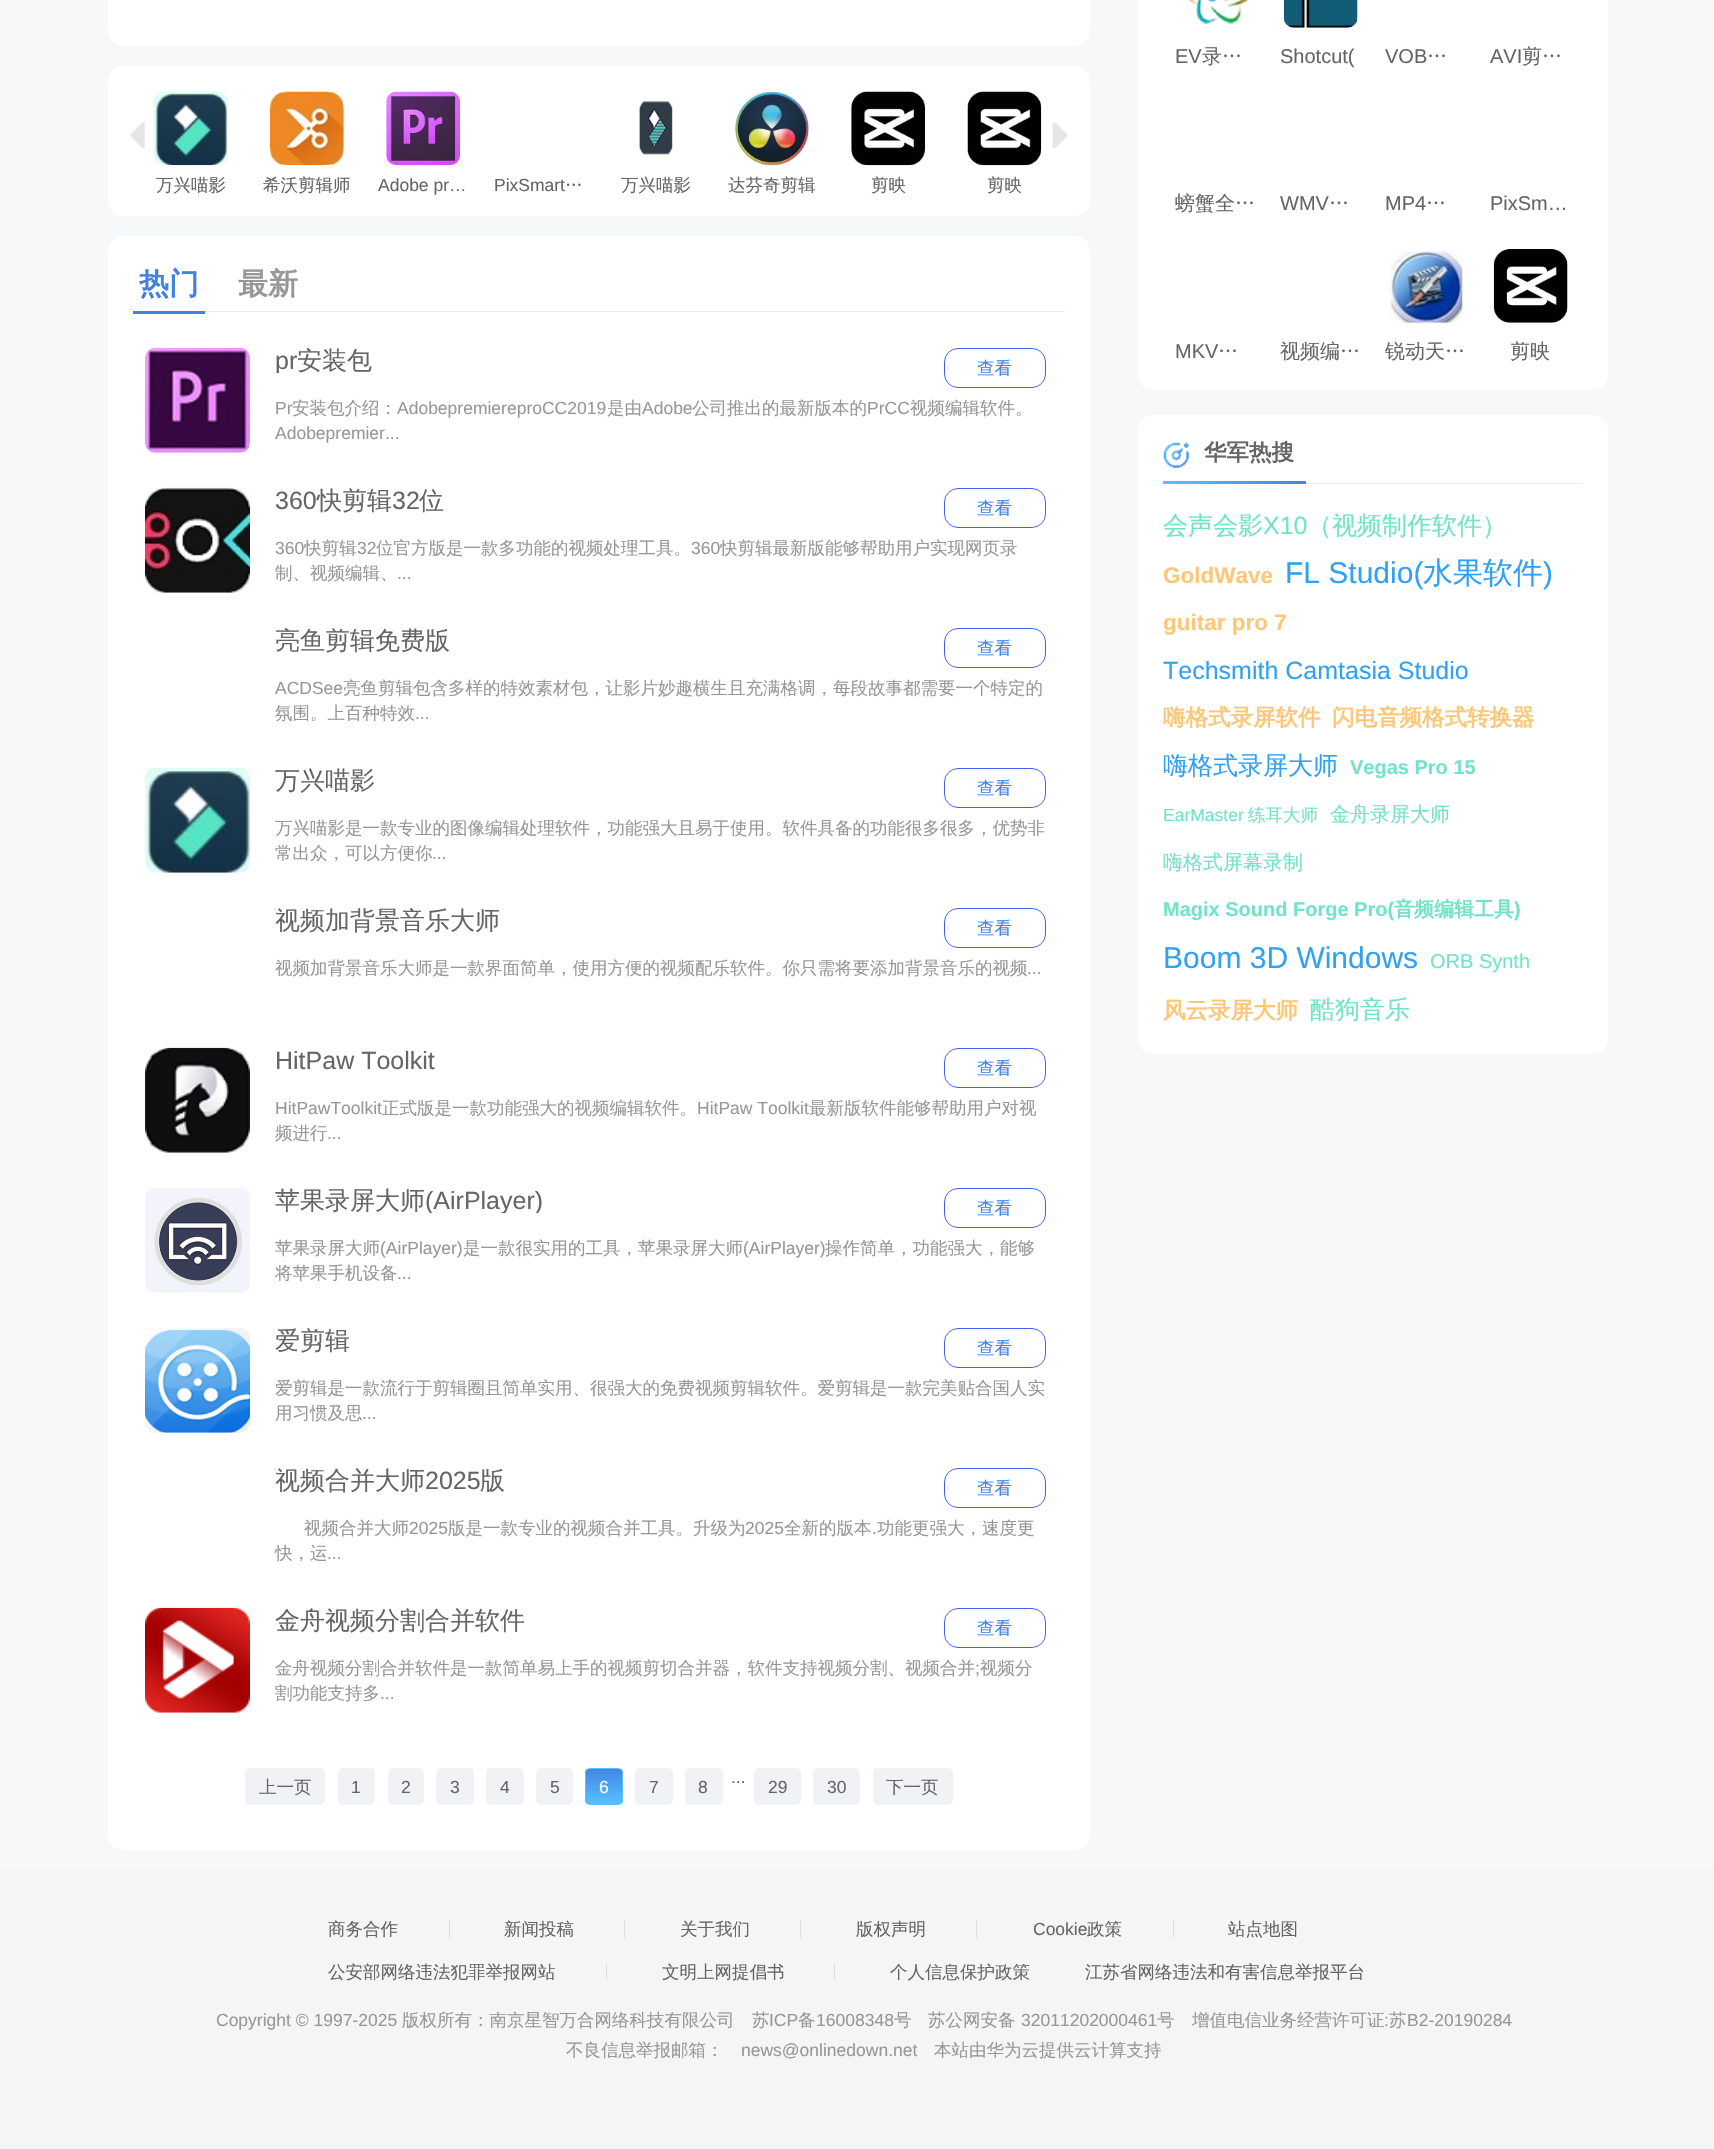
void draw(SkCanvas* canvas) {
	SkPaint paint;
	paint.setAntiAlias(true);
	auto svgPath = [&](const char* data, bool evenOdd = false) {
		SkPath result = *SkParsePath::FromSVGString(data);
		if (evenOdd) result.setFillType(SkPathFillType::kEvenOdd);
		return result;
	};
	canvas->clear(0xfff7f8fa);
	paint.setColor(0xffffffff);
	canvas->drawRoundRect(SkRect::MakeXYWH(108, -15, 982, 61), 15, 15, paint);
	canvas->drawRoundRect(SkRect::MakeXYWH(108, 66, 982, 150), 15, 15, paint);
	canvas->drawImageRect(SkImages::DeferredFromEncodedData(SkData::MakeFromFileName("img1.png")), SkRect::MakeXYWH(130, 121, 15, 28), SkSamplingOptions());
	canvas->drawImageRect(SkImages::DeferredFromEncodedData(SkData::MakeFromFileName("img2.png")), SkRect::MakeXYWH(1052, 122, 16, 27), SkSamplingOptions());
	canvas->drawImageRect(SkImages::DeferredFromEncodedData(SkData::MakeFromFileName("img3.png")), SkRect::MakeXYWH(154, 91, 74, 75), SkSamplingOptions());
	SkFont f1(fontMgr->matchFamilyStyle("WenQuanYi Zen Hei", SkFontStyle(500, SkFontStyle::kNormal_Width, SkFontStyle::kUpright_Slant)), 17.5);
	f1.setSubpixel(true);
	paint.setColor(0xff646566);
	canvas->drawString("万兴喵影", 156, 191, f1, paint);
	canvas->drawImageRect(SkImages::DeferredFromEncodedData(SkData::MakeFromFileName("img4.png")), SkRect::MakeXYWH(270, 91, 74, 75), SkSamplingOptions());
	canvas->drawString("希沃剪辑师", 263, 191, f1, paint);
	canvas->drawImageRect(SkImages::DeferredFromEncodedData(SkData::MakeFromFileName("img5.png")), SkRect::MakeXYWH(386, 91, 74, 75), SkSamplingOptions());
	SkFont f2(fontMgr->matchFamilyStyle("Liberation Sans", SkFontStyle::Normal()), 17.5);
	f2.setSubpixel(true);
	canvas->drawString("Adobe pr…", 378, 191, f2, paint);
	canvas->drawString("PixSmart", 494, 191, f2, paint);
	canvas->drawString("…", 565, 191, f1, paint);
	canvas->drawImageRect(SkImages::DeferredFromEncodedData(SkData::MakeFromFileName("img6.png")), SkRect::MakeXYWH(639, 101, 34, 54), SkSamplingOptions());
	canvas->drawString("万兴喵影", 621, 191, f1, paint);
	canvas->drawImageRect(SkImages::DeferredFromEncodedData(SkData::MakeFromFileName("img7.png")), SkRect::MakeXYWH(735, 91, 74, 75), SkSamplingOptions());
	canvas->drawString("达芬奇剪辑", 728, 191, f1, paint);
	canvas->drawImageRect(SkImages::DeferredFromEncodedData(SkData::MakeFromFileName("img8.png")), SkRect::MakeXYWH(851, 91, 74, 75), SkSamplingOptions());
	canvas->drawString("剪映", 871, 191, f1, paint);
	canvas->drawImageRect(SkImages::DeferredFromEncodedData(SkData::MakeFromFileName("img9.png")), SkRect::MakeXYWH(967, 91, 75, 75), SkSamplingOptions());
	canvas->drawString("剪映", 987, 191, f1, paint);
	paint.setColor(0xffffffff);
	canvas->drawRoundRect(SkRect::MakeXYWH(108, 236, 982, 1614), 15, 15, paint);
	paint.setColor(0xffebedf0);
	canvas->drawRect(SkRect::MakeXYWH(205, 311, 860, 1), paint);
	paint.setColor(0xff4182e1);
	canvas->drawRect(SkRect::MakeXYWH(133, 311, 72, 3), paint);
	SkFont f3(fontMgr->matchFamilyStyle("WenQuanYi Zen Hei", SkFontStyle::Bold()), 30);
	f3.setSubpixel(true);
	canvas->drawString("热门", 139, 294, f3, paint);
	paint.setColor(0xff969799);
	canvas->drawString("最新", 238, 294, f3, paint);
	canvas->drawImageRect(SkImages::DeferredFromEncodedData(SkData::MakeFromFileName("img10.png")), SkRect::MakeXYWH(145, 347, 105, 106), SkSamplingOptions());
	canvas->save();
	canvas->clipRect(SkRect::MakeXYWH(275, 348, 633, 25));
	SkFont f4(fontMgr->matchFamilyStyle("Liberation Sans", SkFontStyle::Normal()), 25);
	f4.setSubpixel(true);
	paint.setColor(0xff646566);
	canvas->drawString("pr", 275, 369, f4, paint);
	canvas->restore();
	SkFont f5(fontMgr->matchFamilyStyle("WenQuanYi Zen Hei", SkFontStyle(500, SkFontStyle::kNormal_Width, SkFontStyle::kUpright_Slant)), 25);
	f5.setSubpixel(true);
	canvas->drawString("安装包", 297, 369, f5, paint);
	paint.setStroke(true);
	paint.setStrokeWidth(1);
	paint.setColor(0xff4861ed);
	canvas->drawRoundRect(SkRect::MakeXYWH(944.5, 348.5, 101, 39), 13.5, 13.5, paint);
	paint.setStroke(false);
	paint.setColor(0xff4182e1);
	canvas->drawString("查看", 977, 374, f1, paint);
	paint.setColor(0xff969799);
	canvas->drawString("Pr", 275, 414, f2, paint);
	canvas->drawString("安装包介绍：", 292, 414, f1, paint);
	canvas->drawString("AdobepremiereproCC2019", 397, 414, f2, paint);
	canvas->drawString("是由", 607, 414, f1, paint);
	canvas->drawString("Adobe", 642, 414, f2, paint);
	canvas->drawString("公司推出的最新版本的", 692, 414, f1, paint);
	canvas->drawString("PrCC", 867, 414, f2, paint);
	canvas->drawString("视频编辑软件。", 910, 414, f1, paint);
	canvas->drawString("Adobepremier...", 275, 439, f2, paint);
	canvas->drawImageRect(SkImages::DeferredFromEncodedData(SkData::MakeFromFileName("img11.png")), SkRect::MakeXYWH(145, 487, 105, 106), SkSamplingOptions());
	paint.setColor(0xff646566);
	canvas->drawString("360", 275, 509, f4, paint);
	canvas->drawString("快剪辑", 317, 509, f5, paint);
	canvas->drawString("32", 392, 509, f4, paint);
	canvas->drawString("位", 419, 509, f5, paint);
	paint.setStroke(true);
	paint.setColor(0xff4861ed);
	canvas->drawRoundRect(SkRect::MakeXYWH(944.5, 488.5, 101, 39), 13.5, 13.5, paint);
	paint.setStroke(false);
	paint.setColor(0xff4182e1);
	canvas->drawString("查看", 977, 514, f1, paint);
	paint.setColor(0xff969799);
	canvas->drawString("360", 275, 554, f2, paint);
	canvas->drawString("快剪辑", 304, 554, f1, paint);
	canvas->drawString("32", 357, 554, f2, paint);
	canvas->drawString("位官方版是一款多功能的视频处理工具。", 376, 554, f1, paint);
	canvas->drawString("360", 691, 554, f2, paint);
	canvas->drawString("快剪辑最新版能够帮助用户实现网页录", 720, 554, f1, paint);
	canvas->drawString("制、视频编辑、", 275, 579, f1, paint);
	canvas->drawString("...", 397, 579, f2, paint);
	paint.setColor(0xff646566);
	canvas->drawString("亮鱼剪辑免费版", 275, 649, f5, paint);
	paint.setStroke(true);
	paint.setColor(0xff4861ed);
	canvas->drawRoundRect(SkRect::MakeXYWH(944.5, 628.5, 101, 39), 13.5, 13.5, paint);
	paint.setStroke(false);
	paint.setColor(0xff4182e1);
	canvas->drawString("查看", 977, 654, f1, paint);
	paint.setColor(0xff969799);
	canvas->drawString("ACDSee", 275, 694, f2, paint);
	canvas->drawString("亮鱼剪辑包含多样的特效素材包，让影片妙趣横生且充满格调，每段故事都需要一个特定的", 343, 694, f1, paint);
	canvas->drawString("氛围。上百种特效", 275, 719, f1, paint);
	canvas->drawString("...", 415, 719, f2, paint);
	canvas->drawImageRect(SkImages::DeferredFromEncodedData(SkData::MakeFromFileName("img12.png")), SkRect::MakeXYWH(145, 768, 105, 105), SkSamplingOptions());
	paint.setColor(0xff646566);
	canvas->drawString("万兴喵影", 275, 789, f5, paint);
	paint.setStroke(true);
	paint.setColor(0xff4861ed);
	canvas->drawRoundRect(SkRect::MakeXYWH(944.5, 768.5, 101, 39), 13.5, 13.5, paint);
	paint.setStroke(false);
	paint.setColor(0xff4182e1);
	canvas->drawString("查看", 977, 794, f1, paint);
	paint.setColor(0xff969799);
	canvas->drawString("万兴喵影是一款专业的图像编辑处理软件，功能强大且易于使用。软件具备的功能很多很多，优势非", 275, 834, f1, paint);
	canvas->drawString("常出众，可以方便你", 275, 859, f1, paint);
	canvas->drawString("...", 432, 859, f2, paint);
	paint.setColor(0xff646566);
	canvas->drawString("视频加背景音乐大师", 275, 929, f5, paint);
	paint.setStroke(true);
	paint.setColor(0xff4861ed);
	canvas->drawRoundRect(SkRect::MakeXYWH(944.5, 908.5, 101, 39), 13.5, 13.5, paint);
	paint.setStroke(false);
	paint.setColor(0xff4182e1);
	canvas->drawString("查看", 977, 934, f1, paint);
	paint.setColor(0xff969799);
	canvas->drawString("视频加背景音乐大师是一款界面简单，使用方便的视频配乐软件。你只需将要添加背景音乐的视频", 275, 974, f1, paint);
	canvas->drawString("...", 1027, 974, f2, paint);
	canvas->drawImageRect(SkImages::DeferredFromEncodedData(SkData::MakeFromFileName("img13.png")), SkRect::MakeXYWH(145, 1047, 105, 106), SkSamplingOptions());
	paint.setColor(0xff646566);
	canvas->drawString("HitPaw Toolkit", 275, 1069, f4, paint);
	paint.setStroke(true);
	paint.setColor(0xff4861ed);
	canvas->drawRoundRect(SkRect::MakeXYWH(944.5, 1048.5, 101, 39), 13.5, 13.5, paint);
	paint.setStroke(false);
	paint.setColor(0xff4182e1);
	canvas->drawString("查看", 977, 1074, f1, paint);
	paint.setColor(0xff969799);
	canvas->drawString("HitPawToolkit", 275, 1114, f2, paint);
	canvas->drawString("正式版是一款功能强大的视频编辑软件。", 382, 1114, f1, paint);
	canvas->drawString("HitPaw Toolkit", 697, 1114, f2, paint);
	canvas->drawString("最新版软件能够帮助用户对视", 809, 1114, f1, paint);
	canvas->drawString("频进行", 275, 1139, f1, paint);
	canvas->drawString("...", 327, 1139, f2, paint);
	canvas->drawImageRect(SkImages::DeferredFromEncodedData(SkData::MakeFromFileName("img14.png")), SkRect::MakeXYWH(145, 1188, 105, 105), SkSamplingOptions());
	paint.setColor(0xff646566);
	canvas->drawString("苹果录屏大师", 275, 1209, f5, paint);
	canvas->save();
	canvas->clipRect(SkRect::MakeXYWH(275, 1188, 633, 25));
	canvas->drawString("(AirPlayer)", 425, 1209, f4, paint);
	canvas->restore();
	paint.setStroke(true);
	paint.setColor(0xff4861ed);
	canvas->drawRoundRect(SkRect::MakeXYWH(944.5, 1188.5, 101, 39), 13.5, 13.5, paint);
	paint.setStroke(false);
	paint.setColor(0xff4182e1);
	canvas->drawString("查看", 977, 1214, f1, paint);
	paint.setColor(0xff969799);
	canvas->drawString("苹果录屏大师", 275, 1254, f1, paint);
	canvas->drawString("(AirPlayer)", 380, 1254, f2, paint);
	canvas->drawString("是一款很实用的工具，苹果录屏大师", 463, 1254, f1, paint);
	canvas->drawString("(AirPlayer)", 743, 1254, f2, paint);
	canvas->drawString("操作简单，功能强大，能够", 825, 1254, f1, paint);
	canvas->drawString("将苹果手机设备", 275, 1279, f1, paint);
	canvas->drawString("...", 397, 1279, f2, paint);
	canvas->drawImageRect(SkImages::DeferredFromEncodedData(SkData::MakeFromFileName("img15.png")), SkRect::MakeXYWH(145, 1328, 105, 105), SkSamplingOptions());
	paint.setColor(0xff646566);
	canvas->drawString("爱剪辑", 275, 1349, f5, paint);
	paint.setStroke(true);
	paint.setColor(0xff4861ed);
	canvas->drawRoundRect(SkRect::MakeXYWH(944.5, 1328.5, 101, 39), 13.5, 13.5, paint);
	paint.setStroke(false);
	paint.setColor(0xff4182e1);
	canvas->drawString("查看", 977, 1354, f1, paint);
	paint.setColor(0xff969799);
	canvas->drawString("爱剪辑是一款流行于剪辑圈且简单实用、很强大的免费视频剪辑软件。爱剪辑是一款完美贴合国人实", 275, 1394, f1, paint);
	canvas->drawString("用习惯及思", 275, 1419, f1, paint);
	canvas->drawString("...", 362, 1419, f2, paint);
	paint.setColor(0xff646566);
	canvas->drawString("视频合并大师", 275, 1489, f5, paint);
	canvas->drawString("2025", 425, 1489, f4, paint);
	canvas->drawString("版", 480, 1489, f5, paint);
	paint.setStroke(true);
	paint.setColor(0xff4861ed);
	canvas->drawRoundRect(SkRect::MakeXYWH(944.5, 1468.5, 101, 39), 13.5, 13.5, paint);
	paint.setStroke(false);
	paint.setColor(0xff4182e1);
	canvas->drawString("查看", 977, 1494, f1, paint);
	paint.setColor(0xff969799);
	canvas->drawString("视频合并大师", 304, 1534, f1, paint);
	canvas->drawString("2025", 409, 1534, f2, paint);
	canvas->drawString("版是一款专业的视频合并工具。升级为", 448, 1534, f1, paint);
	canvas->drawString("2025", 745, 1534, f2, paint);
	canvas->drawString("全新的版本", 784, 1534, f1, paint);
	canvas->drawString(".", 872, 1534, f2, paint);
	canvas->drawString("功能更强大，速度更", 877, 1534, f1, paint);
	canvas->drawString("快，运", 275, 1559, f1, paint);
	canvas->drawString("...", 327, 1559, f2, paint);
	canvas->drawImageRect(SkImages::DeferredFromEncodedData(SkData::MakeFromFileName("img16.png")), SkRect::MakeXYWH(145, 1607, 105, 106), SkSamplingOptions());
	paint.setColor(0xff646566);
	canvas->drawString("金舟视频分割合并软件", 275, 1629, f5, paint);
	paint.setStroke(true);
	paint.setColor(0xff4861ed);
	canvas->drawRoundRect(SkRect::MakeXYWH(944.5, 1608.5, 101, 39), 13.5, 13.5, paint);
	paint.setStroke(false);
	paint.setColor(0xff4182e1);
	canvas->drawString("查看", 977, 1634, f1, paint);
	paint.setColor(0xff969799);
	canvas->drawString("金舟视频分割合并软件是一款简单易上手的视频剪切合并器，软件支持视频分割、视频合并", 275, 1674, f1, paint);
	canvas->drawString(";", 975, 1674, f2, paint);
	canvas->drawString("视频分", 980, 1674, f1, paint);
	canvas->drawString("割功能支持多", 275, 1699, f1, paint);
	canvas->drawString("...", 380, 1699, f2, paint);
	paint.setColor(0xfff1f2f6);
	canvas->drawRoundRect(SkRect::MakeXYWH(245.5, 1768.5, 79, 36), 4.5, 4.5, paint);
	paint.setStroke(true);
	canvas->drawRoundRect(SkRect::MakeXYWH(245.5, 1768.5, 79, 36), 4.5, 4.5, paint);
	paint.setStroke(false);
	paint.setColor(0xff646566);
	canvas->drawString("上一页", 259, 1793, f1, paint);
	paint.setColor(0xfff1f2f6);
	canvas->drawRoundRect(SkRect::MakeXYWH(338.5, 1768.5, 36, 36), 4.5, 4.5, paint);
	paint.setStroke(true);
	canvas->drawRoundRect(SkRect::MakeXYWH(338.5, 1768.5, 36, 36), 4.5, 4.5, paint);
	paint.setStroke(false);
	paint.setColor(0xff646566);
	canvas->drawString("1", 351, 1793, f2, paint);
	paint.setColor(0xfff1f2f6);
	canvas->drawRoundRect(SkRect::MakeXYWH(388.5, 1768.5, 35, 36), 4.5, 4.5, paint);
	paint.setStroke(true);
	canvas->drawRoundRect(SkRect::MakeXYWH(388.5, 1768.5, 35, 36), 4.5, 4.5, paint);
	paint.setStroke(false);
	paint.setColor(0xff646566);
	canvas->drawString("2", 401, 1793, f2, paint);
	paint.setColor(0xfff1f2f6);
	canvas->drawRoundRect(SkRect::MakeXYWH(436.5, 1768.5, 37, 36), 4.5, 4.5, paint);
	paint.setStroke(true);
	canvas->drawRoundRect(SkRect::MakeXYWH(436.5, 1768.5, 37, 36), 4.5, 4.5, paint);
	paint.setStroke(false);
	paint.setColor(0xff646566);
	canvas->drawString("3", 450, 1793, f2, paint);
	paint.setColor(0xfff1f2f6);
	canvas->drawRoundRect(SkRect::MakeXYWH(486.5, 1768.5, 37, 36), 4.5, 4.5, paint);
	paint.setStroke(true);
	canvas->drawRoundRect(SkRect::MakeXYWH(486.5, 1768.5, 37, 36), 4.5, 4.5, paint);
	paint.setStroke(false);
	paint.setColor(0xff646566);
	canvas->drawString("4", 500, 1793, f2, paint);
	paint.setColor(0xfff1f2f6);
	canvas->drawRoundRect(SkRect::MakeXYWH(536.5, 1768.5, 36, 36), 4.5, 4.5, paint);
	paint.setStroke(true);
	canvas->drawRoundRect(SkRect::MakeXYWH(536.5, 1768.5, 36, 36), 4.5, 4.5, paint);
	paint.setStroke(false);
	paint.setColor(0xff646566);
	canvas->drawString("5", 550, 1793, f2, paint);
	canvas->save();
	canvas->clipPath(svgPath("M590 1768H618C621 1768 623 1770 623 1773V1800C623 1803 621 1805 618 1805H590C587 1805 585 1803 585 1800V1773C585 1770 587 1768 590 1768Z"), true);
	{
		const SkColor colors[] = {0xff4285e3, 0xff57c2ff};
		const float stops[] = {0, 1};
		const SkPoint ends[] = {{604, 1769}, {604, 1804}};
		paint.setShader(SkGradientShader::MakeLinear(ends, colors, stops, 2, SkTileMode::kClamp));
		paint.setAlpha(255);
	}
	canvas->drawRect(SkRect::MakeXYWH(585, 1769, 38, 35), paint);
	canvas->restore();
	paint.setStroke(true);
	paint.setShader(nullptr);
	paint.setColor(0xff57c2ff);
	canvas->drawRoundRect(SkRect::MakeXYWH(585.5, 1768.5, 37, 36), 4.5, 4.5, paint);
	paint.setStroke(false);
	paint.setColor(0xffffffff);
	canvas->drawString("6", 599, 1793, f2, paint);
	paint.setColor(0xfff1f2f6);
	canvas->drawRoundRect(SkRect::MakeXYWH(635.5, 1768.5, 37, 36), 4.5, 4.5, paint);
	paint.setStroke(true);
	canvas->drawRoundRect(SkRect::MakeXYWH(635.5, 1768.5, 37, 36), 4.5, 4.5, paint);
	paint.setStroke(false);
	paint.setColor(0xff646566);
	canvas->drawString("7", 649, 1793, f2, paint);
	paint.setColor(0xfff1f2f6);
	canvas->drawRoundRect(SkRect::MakeXYWH(685.5, 1768.5, 37, 36), 4.5, 4.5, paint);
	paint.setStroke(true);
	canvas->drawRoundRect(SkRect::MakeXYWH(685.5, 1768.5, 37, 36), 4.5, 4.5, paint);
	paint.setStroke(false);
	paint.setColor(0xff646566);
	canvas->drawString("8", 698, 1793, f2, paint);
	canvas->drawString("...", 731, 1783, f2, paint);
	paint.setColor(0xfff1f2f6);
	canvas->drawRoundRect(SkRect::MakeXYWH(754.5, 1768.5, 46, 36), 4.5, 4.5, paint);
	paint.setStroke(true);
	canvas->drawRoundRect(SkRect::MakeXYWH(754.5, 1768.5, 46, 36), 4.5, 4.5, paint);
	paint.setStroke(false);
	paint.setColor(0xff646566);
	canvas->drawString("29", 768, 1793, f2, paint);
	paint.setColor(0xfff1f2f6);
	canvas->drawRoundRect(SkRect::MakeXYWH(813.5, 1768.5, 46, 36), 4.5, 4.5, paint);
	paint.setStroke(true);
	canvas->drawRoundRect(SkRect::MakeXYWH(813.5, 1768.5, 46, 36), 4.5, 4.5, paint);
	paint.setStroke(false);
	paint.setColor(0xff646566);
	canvas->drawString("30", 827, 1793, f2, paint);
	paint.setColor(0xfff1f2f6);
	canvas->drawRoundRect(SkRect::MakeXYWH(873.5, 1768.5, 79, 36), 4.5, 4.5, paint);
	paint.setStroke(true);
	canvas->drawRoundRect(SkRect::MakeXYWH(873.5, 1768.5, 79, 36), 4.5, 4.5, paint);
	paint.setStroke(false);
	paint.setColor(0xff646566);
	canvas->drawString("下一页", 886, 1793, f1, paint);
	paint.setColor(0xffffffff);
	canvas->drawRoundRect(SkRect::MakeXYWH(1138, -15, 470, 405), 15, 15, paint);
	canvas->drawImageRect(SkImages::DeferredFromEncodedData(SkData::MakeFromFileName("img17.png")), SkRect::MakeXYWH(1188, 0, 61, 25), SkSamplingOptions());
	SkFont f6(fontMgr->matchFamilyStyle("Liberation Sans", SkFontStyle::Normal()), 20);
	f6.setSubpixel(true);
	paint.setColor(0xff646566);
	canvas->drawString("EV", 1175, 63, f6, paint);
	SkFont f7(fontMgr->matchFamilyStyle("WenQuanYi Zen Hei", SkFontStyle(500, SkFontStyle::kNormal_Width, SkFontStyle::kUpright_Slant)), 20);
	f7.setSubpixel(true);
	canvas->drawString("录…", 1202, 63, f7, paint);
	canvas->drawImageRect(SkImages::DeferredFromEncodedData(SkData::MakeFromFileName("img18.png")), SkRect::MakeXYWH(1283, 0, 75, 28), SkSamplingOptions());
	canvas->drawString("Shotcut(", 1280, 63, f6, paint);
	canvas->drawString("VOB", 1385, 63, f6, paint);
	canvas->drawString("…", 1427, 63, f7, paint);
	canvas->drawString("AVI", 1490, 63, f6, paint);
	canvas->drawString("剪…", 1522, 63, f7, paint);
	canvas->drawString("螃蟹全…", 1175, 210, f7, paint);
	canvas->drawString("WMV", 1280, 210, f6, paint);
	canvas->drawString("…", 1329, 210, f7, paint);
	canvas->drawString("MP4", 1385, 210, f6, paint);
	canvas->drawString("…", 1426, 210, f7, paint);
	canvas->drawString("PixSm…", 1490, 210, f6, paint);
	canvas->drawString("MKV", 1175, 358, f6, paint);
	canvas->drawString("…", 1218, 358, f7, paint);
	canvas->drawString("视频编…", 1280, 358, f7, paint);
	canvas->drawImageRect(SkImages::DeferredFromEncodedData(SkData::MakeFromFileName("img19.png")), SkRect::MakeXYWH(1389, 249, 74, 74), SkSamplingOptions());
	canvas->drawString("锐动天…", 1385, 358, f7, paint);
	canvas->drawImageRect(SkImages::DeferredFromEncodedData(SkData::MakeFromFileName("img20.png")), SkRect::MakeXYWH(1493, 249, 75, 74), SkSamplingOptions());
	canvas->drawString("剪映", 1510, 358, f7, paint);
	paint.setColor(0xffffffff);
	canvas->drawRoundRect(SkRect::MakeXYWH(1138, 415, 470, 639), 15, 15, paint);
	paint.setColor(0xffebedf0);
	canvas->drawRect(SkRect::MakeXYWH(1306, 483, 277, 1), paint);
	canvas->drawImageRect(SkImages::DeferredFromEncodedData(SkData::MakeFromFileName("img21.png")), SkRect::MakeXYWH(1163, 442, 26, 26), SkSamplingOptions());
	SkFont f8(fontMgr->matchFamilyStyle("WenQuanYi Zen Hei", SkFontStyle::Bold()), 22.5);
	f8.setSubpixel(true);
	paint.setColor(0xff646566);
	canvas->drawString("华军热搜", 1204, 460, f8, paint);
	{
		const SkColor colors[] = {0xff4285e3, 0xff57c2ff};
		const float stops[] = {0, 1};
		const SkPoint ends[] = {{1306, 485}, {1163, 480}};
		paint.setShader(SkGradientShader::MakeLinear(ends, colors, stops, 2, SkTileMode::kClamp));
		paint.setAlpha(255);
	}
	canvas->drawRect(SkRect::MakeXYWH(1163, 481, 143, 3), paint);
	paint.setShader(nullptr);
	paint.setColor(0xff72e3c8);
	canvas->drawString("会声会影", 1163, 534, f5, paint);
	canvas->drawString("X10", 1263, 534, f4, paint);
	canvas->drawString("（视频制作软件）", 1307, 534, f5, paint);
	SkFont f9(fontMgr->matchFamilyStyle("Liberation Sans", SkFontStyle::Bold()), 22.5);
	f9.setSubpixel(true);
	paint.setColor(0xfffbc87a);
	canvas->drawString("GoldWave", 1163, 583, f9, paint);
	SkFont f10(fontMgr->matchFamilyStyle("Liberation Sans", SkFontStyle::Normal()), 30);
	f10.setSubpixel(true);
	paint.setColor(0xff30a1f5);
	canvas->drawString("FL Studio(", 1285, 583, f10, paint);
	SkFont f11(fontMgr->matchFamilyStyle("WenQuanYi Zen Hei", SkFontStyle(500, SkFontStyle::kNormal_Width, SkFontStyle::kUpright_Slant)), 30);
	f11.setSubpixel(true);
	canvas->drawString("水果软件", 1423, 583, f11, paint);
	canvas->drawString(")", 1543, 583, f10, paint);
	paint.setColor(0xfffbc87a);
	canvas->drawString("guitar pro 7", 1163, 630, f9, paint);
	paint.setColor(0xff30a1f5);
	canvas->drawString("Techsmith Camtasia Studio", 1163, 679, f4, paint);
	paint.setColor(0xfffbc87a);
	canvas->drawString("嗨格式录屏软件", 1163, 725, f8, paint);
	canvas->drawString("闪电音频格式转换器", 1332, 725, f8, paint);
	paint.setColor(0xff30a1f5);
	canvas->drawString("嗨格式录屏大师", 1163, 774, f5, paint);
	SkFont f12(fontMgr->matchFamilyStyle("Liberation Sans", SkFontStyle::Bold()), 20);
	f12.setSubpixel(true);
	paint.setColor(0xff72e3c8);
	canvas->drawString("Vegas Pro 15", 1350, 774, f12, paint);
	canvas->drawString("EarMaster", 1163, 821, f2, paint);
	canvas->drawString("练耳大师", 1248, 821, f1, paint);
	canvas->drawString("金舟录屏大师", 1330, 821, f7, paint);
	canvas->drawString("嗨格式屏幕录制", 1163, 869, f7, paint);
	canvas->drawString("Magix Sound Forge Pro(", 1163, 916, f12, paint);
	SkFont f13(fontMgr->matchFamilyStyle("WenQuanYi Zen Hei", SkFontStyle::Bold()), 20);
	f13.setSubpixel(true);
	canvas->drawString("音频编辑工具", 1394, 916, f13, paint);
	canvas->drawString(")", 1514, 916, f12, paint);
	paint.setColor(0xff30a1f5);
	canvas->drawString("Boom 3D Windows", 1163, 968, f10, paint);
	paint.setColor(0xff72e3c8);
	canvas->drawString("ORB Synth", 1430, 968, f6, paint);
	paint.setColor(0xfffbc87a);
	canvas->drawString("风云录屏大师", 1163, 1018, f8, paint);
	paint.setColor(0xff72e3c8);
	canvas->drawString("酷狗音乐", 1310, 1018, f5, paint);
	paint.setColor(0xfff5f5f5);
	canvas->drawRect(SkRect::MakeXYWH(0, 1870, 1714, 279), paint);
	paint.setColor(0xffdcdee0);
	canvas->drawRect(SkRect::MakeXYWH(449, 1920, 1, 18), paint);
	paint.setColor(0xff646566);
	canvas->drawString("商务合作", 328, 1935, f1, paint);
	paint.setColor(0xffdcdee0);
	canvas->drawRect(SkRect::MakeXYWH(624, 1920, 1, 18), paint);
	paint.setColor(0xff646566);
	canvas->drawString("新闻投稿", 504, 1935, f1, paint);
	paint.setColor(0xffdcdee0);
	canvas->drawRect(SkRect::MakeXYWH(800, 1920, 1, 18), paint);
	paint.setColor(0xff646566);
	canvas->drawString("关于我们", 680, 1935, f1, paint);
	paint.setColor(0xffdcdee0);
	canvas->drawRect(SkRect::MakeXYWH(976, 1920, 1, 18), paint);
	paint.setColor(0xff646566);
	canvas->drawString("版权声明", 856, 1935, f1, paint);
	paint.setColor(0xffdcdee0);
	canvas->drawRect(SkRect::MakeXYWH(1173, 1920, 1, 18), paint);
	paint.setColor(0xff646566);
	canvas->drawString("Cookie", 1033, 1935, f2, paint);
	canvas->drawString("政策", 1087, 1935, f1, paint);
	canvas->drawString("站点地图", 1228, 1935, f1, paint);
	paint.setColor(0xffdcdee0);
	canvas->drawRect(SkRect::MakeXYWH(606, 1963, 1, 17), paint);
	paint.setColor(0xff646566);
	canvas->drawString("公安部网络违法犯罪举报网站", 328, 1978, f1, paint);
	paint.setColor(0xffdcdee0);
	canvas->drawRect(SkRect::MakeXYWH(834, 1963, 1, 17), paint);
	paint.setColor(0xff646566);
	canvas->drawString("文明上网提倡书", 662, 1978, f1, paint);
	canvas->drawString("个人信息保护政策", 890, 1978, f1, paint);
	canvas->drawString("江苏省网络违法和有害信息举报平台", 1085, 1978, f1, paint);
	paint.setColor(0xff969799);
	canvas->drawString("Copyright © 1997-2025", 216, 2026, f2, paint);
	canvas->drawString("版权所有：南京星智万合网络科技有限公司", 402, 2026, f1, paint);
	canvas->drawString("苏", 752, 2026, f1, paint);
	canvas->drawString("ICP", 769, 2026, f2, paint);
	canvas->drawString("备", 798, 2026, f1, paint);
	canvas->drawString("16008348", 816, 2026, f2, paint);
	canvas->drawString("号", 894, 2026, f1, paint);
	canvas->drawString("苏公网安备", 928, 2026, f1, paint);
	canvas->drawString("32011202000461", 1021, 2026, f2, paint);
	canvas->drawString("号", 1157, 2026, f1, paint);
	canvas->drawString("增值电信业务经营许可证", 1192, 2026, f1, paint);
	canvas->drawString(":", 1384, 2026, f2, paint);
	canvas->drawString("苏", 1389, 2026, f1, paint);
	canvas->drawString("B2-20190284", 1407, 2026, f2, paint);
	canvas->drawString("不良信息举报邮箱：", 566, 2056, f1, paint);
	canvas->drawString("news@onlinedown.net", 741, 2056, f2, paint);
	canvas->drawString("本站由华为云提供云计算支持", 934, 2056, f1, paint);
}
